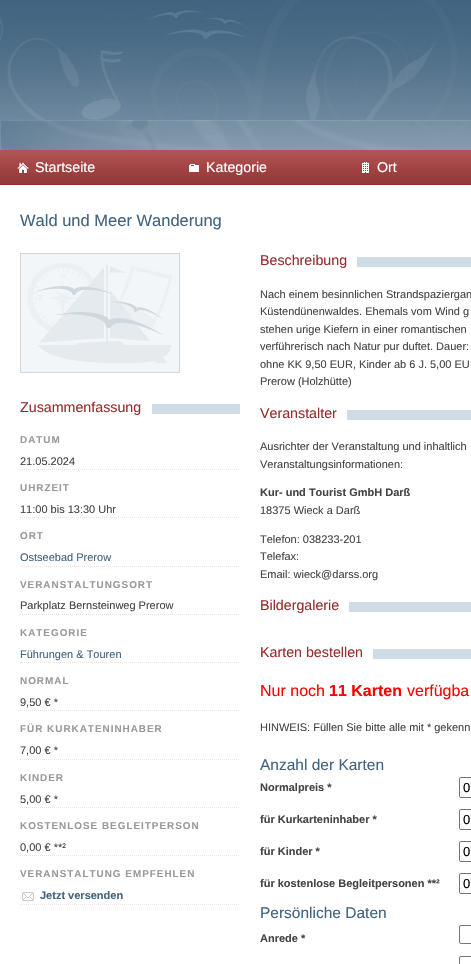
void draw(SkCanvas* canvas) {
	SkPaint paint;
	paint.setAntiAlias(true);
	auto spacedText = [&](const char* s, float x, float y, const SkFont& font, const SkPaint& ink, float letter, float word) {
		std::vector<SkGlyphID> glyphs(font.countText(s, strlen(s), SkTextEncoding::kUTF8));
		std::vector<float> xs(glyphs.size());
		font.textToGlyphs(s, strlen(s), SkTextEncoding::kUTF8, glyphs);
		font.getXPos(glyphs, xs, x);
		float extra = 0;
		for (size_t i = 0; i < glyphs.size(); i++) {
			xs[i] += extra;
			extra += letter + word * (glyphs[i] == font.unicharToGlyph(' '));
		}
		canvas->drawTextBlob(SkTextBlob::MakeFromPosHGlyphs(glyphs, xs, y, font), 0, 0, ink);
	};
	auto svgPath = [&](const char* data, bool evenOdd = false) {
		SkPath result = *SkParsePath::FromSVGString(data);
		if (evenOdd) result.setFillType(SkPathFillType::kEvenOdd);
		return result;
	};
	canvas->clear(0xffffffff);
	canvas->drawImageRect(SkImages::DeferredFromEncodedData(SkData::MakeFromFileName("img1.png")), SkRect::MakeXYWH(0, 0, 471, 120), SkSamplingOptions());
	canvas->drawImageRect(SkImages::DeferredFromEncodedData(SkData::MakeFromFileName("img2.png")), SkRect::MakeXYWH(0, 120, 471, 30), SkSamplingOptions());
	paint.setColor(0xff992e2e);
	canvas->drawRect(SkRect::MakeXYWH(0, 184, 471, 1), paint);
	canvas->drawImageRect(SkImages::DeferredFromEncodedData(SkData::MakeFromFileName("img3.png")), SkRect::MakeXYWH(0, 150, 471, 34), SkSamplingOptions());
	canvas->drawImageRect(SkImages::DeferredFromEncodedData(SkData::MakeFromFileName("img4.png")), SkRect::MakeXYWH(17, 162, 12, 14), SkSamplingOptions());
	SkFont f1(fontMgr->matchFamilyStyle("Liberation Sans", SkFontStyle::Normal()), 14.25);
	f1.setSubpixel(true);
	paint.setColor(0xffffffff);
	canvas->drawString("Startseite", 35, 172, f1, paint);
	canvas->drawImageRect(SkImages::DeferredFromEncodedData(SkData::MakeFromFileName("img5.png")), SkRect::MakeXYWH(189, 164, 10, 8), SkSamplingOptions());
	canvas->drawString("Kategorie", 206, 172, f1, paint);
	canvas->drawImageRect(SkImages::DeferredFromEncodedData(SkData::MakeFromFileName("img6.png")), SkRect::MakeXYWH(362, 162, 7, 11), SkSamplingOptions());
	canvas->drawString("Ort", 377, 172, f1, paint);
	SkFont f2(fontMgr->matchFamilyStyle("Liberation Sans", SkFontStyle::Normal()), 16.5);
	f2.setSubpixel(true);
	paint.setColor(0xff406380);
	canvas->drawString("Wald und Meer Wanderung", 20, 226, f2, paint);
	canvas->drawImageRect(SkImages::DeferredFromEncodedData(SkData::MakeFromFileName("img7.png")), SkRect::MakeXYWH(20, 253, 160, 120), SkSamplingOptions());
	paint.setColor(0xffcfdbe5);
	canvas->drawRect(SkRect::MakeXYWH(152, 404, 88, 10), paint);
	paint.setColor(0xff992e2e);
	canvas->drawString("Zusammenfassung", 20, 412, f1, paint);
	SkFont f3(fontMgr->matchFamilyStyle("Liberation Sans", SkFontStyle::Bold()), 9.9);
	f3.setSubpixel(true);
	paint.setColor(0xff999999);
	spacedText("DATUM", 20, 443, f3, paint, 1, 0);
	paint.setStroke(true);
	paint.setStrokeWidth(1);
	paint.setColor(0xffe5e5e5);
	paint.setPathEffect(SkDashPathEffect::Make({{1, 1}}, 0));
	canvas->drawPath(svgPath("M20 469.5H240"), paint);
	paint.setPathEffect(nullptr);
	SkFont f4(fontMgr->matchFamilyStyle("Liberation Sans", SkFontStyle::Normal()), 11);
	f4.setSubpixel(true);
	paint.setStroke(false);
	paint.setColor(0xff444444);
	canvas->drawString("21.05.2024", 20, 465, f4, paint);
	paint.setColor(0xff999999);
	spacedText("UHRZEIT", 20, 491, f3, paint, 1, 0);
	paint.setStroke(true);
	paint.setColor(0xffe5e5e5);
	paint.setPathEffect(SkDashPathEffect::Make({{1, 1}}, 0));
	canvas->drawPath(svgPath("M20 517.5H240"), paint);
	paint.setPathEffect(nullptr);
	paint.setStroke(false);
	paint.setColor(0xff444444);
	canvas->drawString("11:00 bis 13:30 Uhr", 20, 513, f4, paint);
	paint.setColor(0xff999999);
	spacedText("ORT", 20, 539, f3, paint, 1, 0);
	paint.setStroke(true);
	paint.setColor(0xffe5e5e5);
	paint.setPathEffect(SkDashPathEffect::Make({{1, 1}}, 0));
	canvas->drawPath(svgPath("M20 566.5H240"), paint);
	paint.setPathEffect(nullptr);
	paint.setStroke(false);
	paint.setColor(0xff406380);
	canvas->drawString("Ostseebad Prerow", 20, 561, f4, paint);
	paint.setColor(0xff999999);
	spacedText("VERANSTALTUNGSORT", 20, 588, f3, paint, 1, 0);
	paint.setStroke(true);
	paint.setColor(0xffe5e5e5);
	paint.setPathEffect(SkDashPathEffect::Make({{1, 1}}, 0));
	canvas->drawPath(svgPath("M20 614.5H240"), paint);
	paint.setPathEffect(nullptr);
	paint.setStroke(false);
	paint.setColor(0xff444444);
	canvas->drawString("Parkplatz Bernsteinweg Prerow", 20, 609, f4, paint);
	paint.setColor(0xff999999);
	spacedText("KATEGORIE", 20, 636, f3, paint, 1, 0);
	paint.setStroke(true);
	paint.setColor(0xffe5e5e5);
	paint.setPathEffect(SkDashPathEffect::Make({{1, 1}}, 0));
	canvas->drawPath(svgPath("M20 662.5H240"), paint);
	paint.setPathEffect(nullptr);
	paint.setStroke(false);
	paint.setColor(0xff406380);
	canvas->drawString("Führungen & Touren", 20, 658, f4, paint);
	paint.setColor(0xff999999);
	spacedText("NORMAL", 20, 684, f3, paint, 1, 0);
	paint.setStroke(true);
	paint.setColor(0xffe5e5e5);
	paint.setPathEffect(SkDashPathEffect::Make({{1, 1}}, 0));
	canvas->drawPath(svgPath("M20 710.5H240"), paint);
	paint.setPathEffect(nullptr);
	paint.setStroke(false);
	paint.setColor(0xff444444);
	canvas->drawString("9,50 € *", 20, 706, f4, paint);
	paint.setColor(0xff999999);
	spacedText("FÜR KURKATENINHABER", 20, 732, f3, paint, 1, 0);
	paint.setStroke(true);
	paint.setColor(0xffe5e5e5);
	paint.setPathEffect(SkDashPathEffect::Make({{1, 1}}, 0));
	canvas->drawPath(svgPath("M20 759.5H240"), paint);
	paint.setPathEffect(nullptr);
	paint.setStroke(false);
	paint.setColor(0xff444444);
	canvas->drawString("7,00 € *", 20, 754, f4, paint);
	paint.setColor(0xff999999);
	spacedText("KINDER", 20, 781, f3, paint, 1, 0);
	paint.setStroke(true);
	paint.setColor(0xffe5e5e5);
	paint.setPathEffect(SkDashPathEffect::Make({{1, 1}}, 0));
	canvas->drawPath(svgPath("M20 807.5H240"), paint);
	paint.setPathEffect(nullptr);
	paint.setStroke(false);
	paint.setColor(0xff444444);
	canvas->drawString("5,00 € *", 20, 803, f4, paint);
	paint.setColor(0xff999999);
	spacedText("KOSTENLOSE BEGLEITPERSON", 20, 829, f3, paint, 1, 0);
	paint.setStroke(true);
	paint.setColor(0xffe5e5e5);
	paint.setPathEffect(SkDashPathEffect::Make({{1, 1}}, 0));
	canvas->drawPath(svgPath("M20 855.5H240"), paint);
	paint.setPathEffect(nullptr);
	paint.setStroke(false);
	paint.setColor(0xff444444);
	canvas->drawString("0,00 € **²", 20, 851, f4, paint);
	paint.setColor(0xff999999);
	spacedText("VERANSTALTUNG EMPFEHLEN", 20, 877, f3, paint, 1, 0);
	paint.setStroke(true);
	paint.setColor(0xffe5e5e5);
	paint.setPathEffect(SkDashPathEffect::Make({{1, 1}}, 0));
	canvas->drawPath(svgPath("M20 904.5H240"), paint);
	paint.setPathEffect(nullptr);
	canvas->drawImageRect(SkImages::DeferredFromEncodedData(SkData::MakeFromFileName("img8.png")), SkRect::MakeXYWH(22, 892, 12, 9), SkSamplingOptions());
	SkFont f5(fontMgr->matchFamilyStyle("Liberation Sans", SkFontStyle::Bold()), 11);
	f5.setSubpixel(true);
	paint.setStroke(false);
	paint.setColor(0xff406380);
	canvas->drawString("Jetzt versenden", 40, 899, f5, paint);
	paint.setColor(0xffcfdbe5);
	canvas->drawRect(SkRect::MakeXYWH(357, 257, 114, 10), paint);
	paint.setColor(0xff992e2e);
	canvas->drawString("Beschreibung", 260, 265, f1, paint);
	paint.setColor(0xff444444);
	canvas->drawString("Nach einem besinnlichen Strandspaziergan", 260, 298, f4, paint);
	canvas->drawString("Küstendünenwaldes. Ehemals vom Wind g", 260, 315, f4, paint);
	canvas->drawString("stehen urige Kiefern in einer romantischen", 260, 333, f4, paint);
	canvas->drawString("verführerisch nach Natur pur duftet. Dauer:", 260, 350, f4, paint);
	canvas->drawString("ohne KK 9,50 EUR, Kinder ab 6 J. 5,00 EU", 260, 368, f4, paint);
	canvas->drawString("Prerow (Holzhütte)", 260, 385, f4, paint);
	paint.setColor(0xffcfdbe5);
	canvas->drawRect(SkRect::MakeXYWH(347, 410, 124, 10), paint);
	paint.setColor(0xff992e2e);
	canvas->drawString("Veranstalter", 260, 418, f1, paint);
	paint.setColor(0xff444444);
	canvas->drawString("Ausrichter der Veranstaltung und inhaltlich", 260, 450, f4, paint);
	canvas->drawString("Veranstaltungsinformationen:", 260, 468, f4, paint);
	canvas->drawString("Kur- und Tourist GmbH Darß", 260, 496, f5, paint);
	canvas->drawString("18375 Wieck a Darß", 260, 514, f4, paint);
	canvas->drawString("Telefon: 038233-201", 260, 543, f4, paint);
	canvas->drawString("Telefax:", 260, 560, f4, paint);
	canvas->drawString("Email: wieck@darss.org", 260, 578, f4, paint);
	paint.setColor(0xffcfdbe5);
	canvas->drawRect(SkRect::MakeXYWH(349, 602, 122, 10), paint);
	paint.setColor(0xff992e2e);
	canvas->drawString("Bildergalerie", 260, 610, f1, paint);
	paint.setColor(0xffcfdbe5);
	canvas->drawRect(SkRect::MakeXYWH(373, 649, 98, 10), paint);
	paint.setColor(0xff992e2e);
	canvas->drawString("Karten bestellen", 260, 657, f1, paint);
	SkFont f6(fontMgr->matchFamilyStyle("Liberation Sans", SkFontStyle::Normal()), 16);
	f6.setSubpixel(true);
	paint.setColor(0xffff0000);
	canvas->drawString("Nur noch", 260, 696, f6, paint);
	SkFont f7(fontMgr->matchFamilyStyle("Liberation Sans", SkFontStyle::Bold()), 16);
	f7.setSubpixel(true);
	canvas->drawString("11 Karten", 329, 696, f7, paint);
	canvas->drawString("verfügba", 407, 696, f6, paint);
	paint.setColor(0xff444444);
	canvas->drawString("HINWEIS: Füllen Sie bitte alle mit * gekenn", 260, 731, f4, paint);
	SkFont f8(fontMgr->matchFamilyStyle("Liberation Sans", SkFontStyle::Normal()), 15.5);
	f8.setSubpixel(true);
	paint.setColor(0xff406380);
	canvas->drawString("Anzahl der Karten", 260, 770, f8, paint);
	paint.setColor(0xff444444);
	canvas->drawString("Normalpreis *", 260, 791, f5, paint);
	paint.setStroke(true);
	paint.setColor(0xff767676);
	canvas->drawRoundRect(SkRect::MakeXYWH(459.5, 777.5, 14, 20), 1.5, 1.5, paint);
	SkFont f9(fontMgr->matchFamilyStyle("Liberation Sans", SkFontStyle::Normal()), 13);
	f9.setSubpixel(true);
	paint.setStroke(false);
	paint.setColor(0xff000000);
	canvas->drawString("0", 463, 792, f9, paint);
	paint.setColor(0xff444444);
	canvas->drawString("für Kurkarteninhaber *", 260, 823, f5, paint);
	paint.setStroke(true);
	paint.setColor(0xff767676);
	canvas->drawRoundRect(SkRect::MakeXYWH(459.5, 809.5, 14, 20), 1.5, 1.5, paint);
	paint.setStroke(false);
	paint.setColor(0xff000000);
	canvas->drawString("0", 463, 824, f9, paint);
	paint.setColor(0xff444444);
	canvas->drawString("für Kinder *", 260, 855, f5, paint);
	paint.setStroke(true);
	paint.setColor(0xff767676);
	canvas->drawRoundRect(SkRect::MakeXYWH(459.5, 841.5, 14, 20), 1.5, 1.5, paint);
	paint.setStroke(false);
	paint.setColor(0xff000000);
	canvas->drawString("0", 463, 856, f9, paint);
	paint.setColor(0xff444444);
	canvas->drawString("für kostenlose Begleitpersonen **²", 260, 887, f5, paint);
	paint.setStroke(true);
	paint.setColor(0xff767676);
	canvas->drawRoundRect(SkRect::MakeXYWH(459.5, 873.5, 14, 20), 1.5, 1.5, paint);
	paint.setStroke(false);
	paint.setColor(0xff000000);
	canvas->drawString("0", 463, 888, f9, paint);
	paint.setColor(0xff406380);
	canvas->drawString("Persönliche Daten", 260, 918, f8, paint);
	paint.setColor(0xff444444);
	canvas->drawString("Anrede *", 260, 942, f5, paint);
	paint.setStroke(true);
	paint.setColor(0xff767676);
	canvas->drawRoundRect(SkRect::MakeXYWH(459.5, 925.5, 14, 18), 1.5, 1.5, paint);
	canvas->drawRoundRect(SkRect::MakeXYWH(459.5, 956.5, 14, 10), 1.5, 1.5, paint);
}
